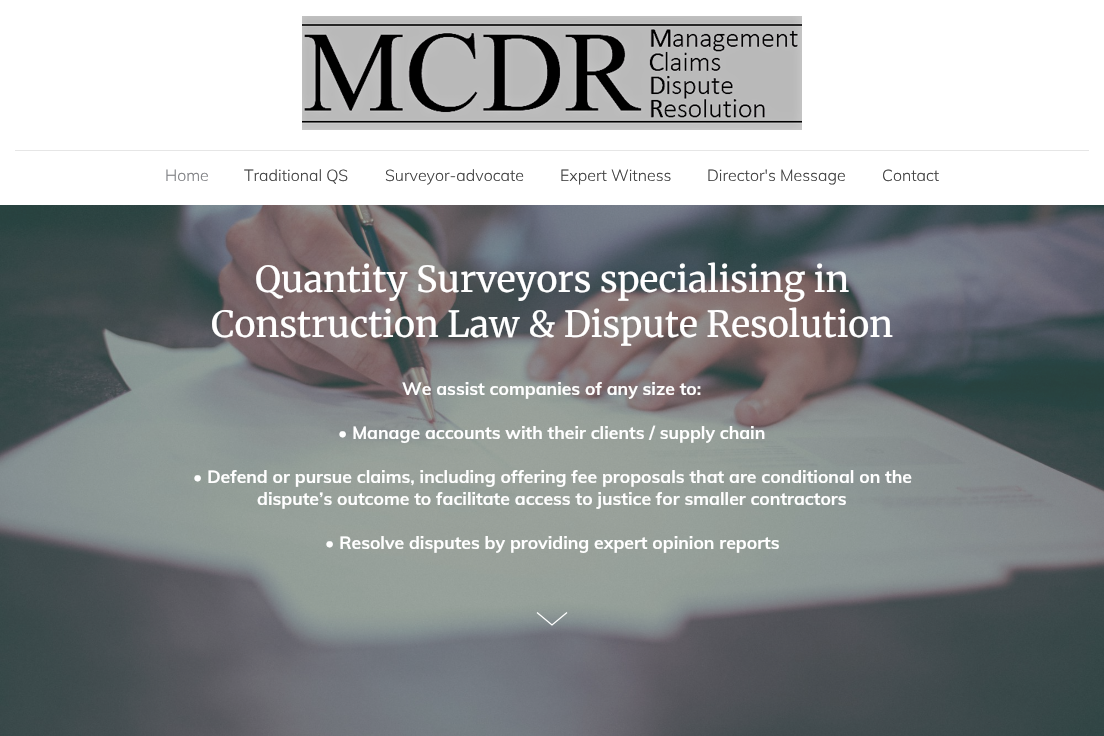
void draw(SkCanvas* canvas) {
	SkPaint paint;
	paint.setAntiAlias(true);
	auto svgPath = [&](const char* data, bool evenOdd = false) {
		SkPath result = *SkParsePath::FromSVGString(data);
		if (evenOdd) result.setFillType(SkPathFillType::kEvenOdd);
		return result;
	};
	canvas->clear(0xff505050);
	paint.setColor(0xffffffff);
	canvas->drawRect(SkRect::MakeXYWH(0, 0, 1104, 205), paint);
	canvas->drawImageRect(SkImages::DeferredFromEncodedData(SkData::MakeFromFileName("img1.png")), SkRect::MakeXYWH(302, 16, 500, 114), SkSamplingOptions());
	paint.setColor(0xffe6e6e6);
	canvas->drawRect(SkRect::MakeXYWH(15, 150, 1074, 1), paint);
	SkFont f1(fontMgr->matchFamilyStyle("Muli", SkFontStyle(300, SkFontStyle::kNormal_Width, SkFontStyle::kUpright_Slant)), 16);
	f1.setSubpixel(true);
	paint.setColor(0xff7e7f83);
	canvas->drawString("Home", 165, 181, f1, paint);
	paint.setColor(0xff404040);
	canvas->drawString("Traditional QS", 244, 181, f1, paint);
	canvas->drawString("Surveyor-advocate", 385, 181, f1, paint);
	canvas->drawString("Expert Witness", 560, 181, f1, paint);
	canvas->drawString("Director's Message", 707, 181, f1, paint);
	canvas->drawString("Contact", 882, 181, f1, paint);
	canvas->drawImageRect(SkImages::DeferredFromEncodedData(SkData::MakeFromFileName("img2.png")), SkRect::MakeXYWH(0, 205, 1104, 531), SkSamplingOptions());
	SkFont f2(fontMgr->matchFamilyStyle("Merriweather", SkFontStyle::Normal()), 36);
	f2.setSubpixel(true);
	paint.setColor(0xffffffff);
	canvas->drawString("Quantity Surveyors specialising in", 255, 292, f2, paint);
	canvas->drawString("Construction Law & Dispute Resolution", 211, 337, f2, paint);
	SkFont f3(fontMgr->matchFamilyStyle("Muli", SkFontStyle::Bold()), 17.6);
	f3.setSubpixel(true);
	canvas->drawString("We assist companies of any size to:", 402, 395, f3, paint);
	canvas->drawString("• Manage accounts with their clients / supply chain", 338, 439, f3, paint);
	canvas->drawString("• Defend or pursue claims, including offering fee proposals that are conditional on the", 193, 483, f3, paint);
	canvas->drawString("dispute’s outcome to facilitate access to justice for smaller contractors", 257, 505, f3, paint);
	canvas->drawString("• Resolve disputes by providing expert opinion reports", 325, 549, f3, paint);
	paint.setStroke(true);
	paint.setStrokeWidth(1.3);
	canvas->drawPath(svgPath("M537 612.5L552 625L567 612.5"), paint);
}
